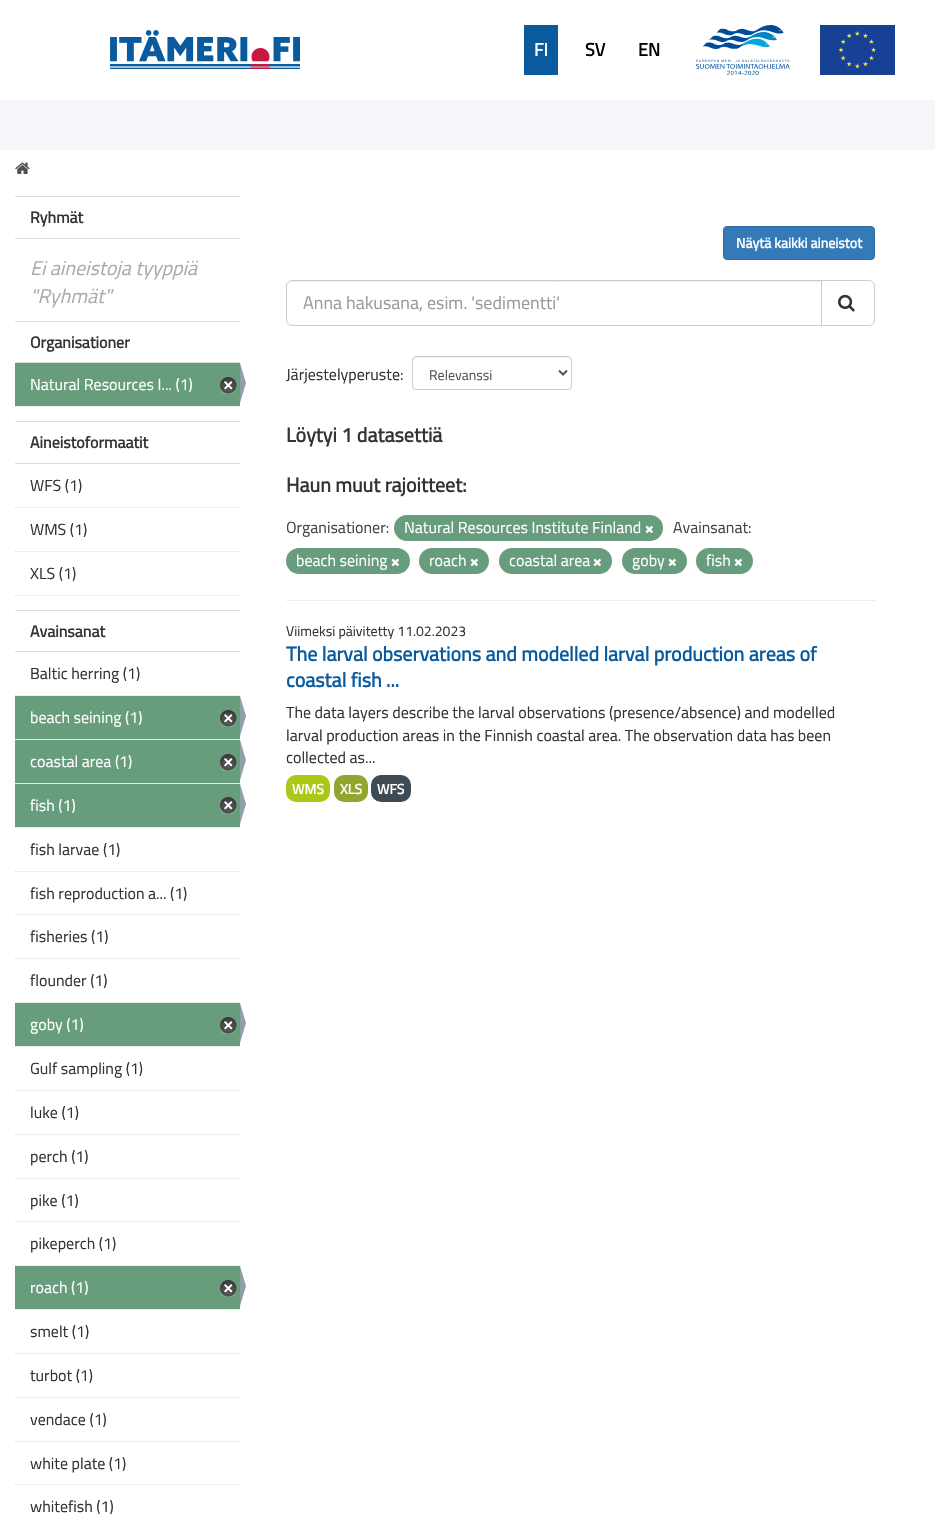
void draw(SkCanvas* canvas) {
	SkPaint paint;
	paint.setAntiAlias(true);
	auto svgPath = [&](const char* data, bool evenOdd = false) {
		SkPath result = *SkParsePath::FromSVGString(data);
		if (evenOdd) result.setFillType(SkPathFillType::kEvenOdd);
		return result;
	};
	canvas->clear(0xffffffff);
	canvas->drawImageRect(SkImages::DeferredFromEncodedData(SkData::MakeFromFileName("img1.png")), SkRect::MakeXYWH(110, 30, 190, 39), SkSamplingOptions());
	paint.setColor(0xff095b9d);
	canvas->drawRect(SkRect::MakeXYWH(524, 25, 34, 50), paint);
	SkFont f1(fontMgr->matchFamilyStyle("Titillium Web", SkFontStyle::Bold()), 18);
	f1.setSubpixel(true);
	paint.setColor(0xffffffff);
	canvas->drawString("FI", 534, 56, f1, paint);
	paint.setColor(0xff000000);
	canvas->drawString("SV", 585, 56, f1, paint);
	canvas->drawString("EN", 638, 56, f1, paint);
	canvas->drawImageRect(SkImages::DeferredFromEncodedData(SkData::MakeFromFileName("img2.png")), SkRect::MakeXYWH(696, 25, 94, 50), SkSamplingOptions());
	canvas->drawImageRect(SkImages::DeferredFromEncodedData(SkData::MakeFromFileName("img3.png")), SkRect::MakeXYWH(820, 25, 75, 50), SkSamplingOptions());
	paint.setColor(0xfff5f6fa);
	canvas->drawRect(SkRect::MakeXYWH(0, 100, 935, 50), paint);
	canvas->drawImageRect(SkImages::DeferredFromEncodedData(SkData::MakeFromFileName("img4.png")), SkRect::MakeXYWH(15, 162, 15, 12), SkSamplingOptions());
	paint.setColor(0xffdddddd);
	canvas->drawRect(SkRect::MakeXYWH(15, 196, 225, 1), paint);
	canvas->drawRect(SkRect::MakeXYWH(15, 238, 225, 1), paint);
	SkFont f2(fontMgr->matchFamilyStyle("Titillium Web", SkFontStyle::Bold()), 16);
	f2.setSubpixel(true);
	paint.setColor(0xff333333);
	canvas->drawString("Ryhmät", 30, 223, f2, paint);
	SkFont f3(fontMgr->matchFamilyStyle("Titillium Web", SkFontStyle::Italic()), 20);
	f3.setSubpixel(true);
	paint.setColor(0xffaaaaaa);
	canvas->drawString("Ei aineistoja tyyppiä", 30, 275, f3, paint);
	canvas->drawString("\"Ryhmät\"", 30, 303, f3, paint);
	paint.setColor(0xffdddddd);
	canvas->drawRect(SkRect::MakeXYWH(15, 321, 225, 1), paint);
	canvas->drawRect(SkRect::MakeXYWH(15, 362, 225, 1), paint);
	paint.setColor(0xff333333);
	canvas->drawString("Organisationer", 30, 348, f2, paint);
	paint.setColor(0xff679d7d);
	canvas->drawRect(SkRect::MakeXYWH(15, 363, 225, 43), paint);
	SkFont f4(fontMgr->matchFamilyStyle("Titillium Web", SkFontStyle::Normal()), 16);
	f4.setSubpixel(true);
	paint.setColor(0xffffffff);
	canvas->drawString("Natural Resources I... (1)", 30, 390, f4, paint);
	canvas->drawImageRect(SkImages::DeferredFromEncodedData(SkData::MakeFromFileName("img5.png")), SkRect::MakeXYWH(220, 377, 17, 17), SkSamplingOptions());
	paint.setColor(0xff8ca0a6);
	canvas->drawPath(svgPath("M240 403V363L246 383Z"), paint);
	paint.setStroke(true);
	paint.setStrokeWidth(1);
	paint.setColor(0xffdddddd);
	paint.setPathEffect(SkDashPathEffect::Make({{1, 1}}, 0));
	canvas->drawPath(svgPath("M15 406.5H240"), paint);
	paint.setPathEffect(nullptr);
	paint.setStroke(false);
	canvas->drawRect(SkRect::MakeXYWH(15, 421, 225, 1), paint);
	canvas->drawRect(SkRect::MakeXYWH(15, 463, 225, 1), paint);
	paint.setColor(0xff333333);
	canvas->drawString("Aineistoformaatit", 30, 448, f2, paint);
	paint.setStroke(true);
	paint.setColor(0xffdddddd);
	paint.setPathEffect(SkDashPathEffect::Make({{1, 1}}, 0));
	canvas->drawPath(svgPath("M15 507.5H240"), paint);
	paint.setPathEffect(nullptr);
	paint.setStroke(false);
	paint.setColor(0xff333333);
	canvas->drawString("WFS (1)", 30, 491, f4, paint);
	paint.setStroke(true);
	paint.setColor(0xffdddddd);
	paint.setPathEffect(SkDashPathEffect::Make({{1, 1}}, 0));
	canvas->drawPath(svgPath("M15 551.5H240"), paint);
	paint.setPathEffect(nullptr);
	paint.setStroke(false);
	paint.setColor(0xff333333);
	canvas->drawString("WMS (1)", 30, 535, f4, paint);
	canvas->drawString("XLS (1)", 30, 579, f4, paint);
	paint.setStroke(true);
	paint.setColor(0xffdddddd);
	paint.setPathEffect(SkDashPathEffect::Make({{1, 1}}, 0));
	canvas->drawPath(svgPath("M15 595.5H240"), paint);
	paint.setPathEffect(nullptr);
	paint.setStroke(false);
	canvas->drawRect(SkRect::MakeXYWH(15, 610, 225, 1), paint);
	canvas->drawRect(SkRect::MakeXYWH(15, 651, 225, 1), paint);
	paint.setColor(0xff333333);
	canvas->drawString("Avainsanat", 30, 637, f2, paint);
	paint.setStroke(true);
	paint.setColor(0xffdddddd);
	paint.setPathEffect(SkDashPathEffect::Make({{1, 1}}, 0));
	canvas->drawPath(svgPath("M15 695.5H240"), paint);
	paint.setPathEffect(nullptr);
	paint.setStroke(false);
	paint.setColor(0xff333333);
	canvas->drawString("Baltic herring (1)", 30, 679, f4, paint);
	paint.setColor(0xfff6f6f6);
	canvas->drawRect(SkRect::MakeXYWH(16, 739, 223, 1), paint);
	paint.setStroke(true);
	paint.setColor(0xffdddddd);
	paint.setPathEffect(SkDashPathEffect::Make({{1, 1}}, 0));
	canvas->drawPath(svgPath("M15 739.5H240"), paint);
	paint.setPathEffect(nullptr);
	paint.setStroke(false);
	paint.setColor(0xff679d7d);
	canvas->drawRect(SkRect::MakeXYWH(15, 696, 225, 43), paint);
	paint.setColor(0xffffffff);
	canvas->drawString("beach seining (1)", 30, 723, f4, paint);
	canvas->drawImageRect(SkImages::DeferredFromEncodedData(SkData::MakeFromFileName("img5.png")), SkRect::MakeXYWH(220, 710, 17, 17), SkSamplingOptions());
	paint.setColor(0xff8ca0a6);
	canvas->drawPath(svgPath("M240 736V696L246 716Z"), paint);
	paint.setColor(0xfff6f6f6);
	canvas->drawRect(SkRect::MakeXYWH(16, 783, 223, 1), paint);
	paint.setStroke(true);
	paint.setColor(0xffdddddd);
	paint.setPathEffect(SkDashPathEffect::Make({{1, 1}}, 0));
	canvas->drawPath(svgPath("M15 783.5H240"), paint);
	paint.setPathEffect(nullptr);
	paint.setStroke(false);
	paint.setColor(0xff679d7d);
	canvas->drawRect(SkRect::MakeXYWH(15, 740, 225, 43), paint);
	paint.setColor(0xffffffff);
	canvas->drawString("coastal area (1)", 30, 767, f4, paint);
	canvas->drawImageRect(SkImages::DeferredFromEncodedData(SkData::MakeFromFileName("img5.png")), SkRect::MakeXYWH(220, 754, 17, 17), SkSamplingOptions());
	paint.setColor(0xff8ca0a6);
	canvas->drawPath(svgPath("M240 780V740L246 760Z"), paint);
	paint.setColor(0xfff6f6f6);
	canvas->drawRect(SkRect::MakeXYWH(16, 827, 223, 1), paint);
	paint.setStroke(true);
	paint.setColor(0xffdddddd);
	paint.setPathEffect(SkDashPathEffect::Make({{1, 1}}, 0));
	canvas->drawPath(svgPath("M15 827.5H240"), paint);
	paint.setPathEffect(nullptr);
	paint.setStroke(false);
	paint.setColor(0xff679d7d);
	canvas->drawRect(SkRect::MakeXYWH(15, 784, 225, 43), paint);
	paint.setColor(0xffffffff);
	canvas->drawString("fish (1)", 30, 811, f4, paint);
	canvas->drawImageRect(SkImages::DeferredFromEncodedData(SkData::MakeFromFileName("img5.png")), SkRect::MakeXYWH(220, 797, 17, 17), SkSamplingOptions());
	paint.setColor(0xff8ca0a6);
	canvas->drawPath(svgPath("M240 824V784L246 804Z"), paint);
	paint.setStroke(true);
	paint.setColor(0xffdddddd);
	paint.setPathEffect(SkDashPathEffect::Make({{1, 1}}, 0));
	canvas->drawPath(svgPath("M15 871.5H240"), paint);
	paint.setPathEffect(nullptr);
	paint.setStroke(false);
	paint.setColor(0xff333333);
	canvas->drawString("fish larvae (1)", 30, 855, f4, paint);
	paint.setStroke(true);
	paint.setColor(0xffdddddd);
	paint.setPathEffect(SkDashPathEffect::Make({{1, 1}}, 0));
	canvas->drawPath(svgPath("M15 914.5H240"), paint);
	paint.setPathEffect(nullptr);
	paint.setStroke(false);
	paint.setColor(0xff333333);
	canvas->drawString("fish reproduction a... (1)", 30, 899, f4, paint);
	paint.setStroke(true);
	paint.setColor(0xffdddddd);
	paint.setPathEffect(SkDashPathEffect::Make({{1, 1}}, 0));
	canvas->drawPath(svgPath("M15 958.5H240"), paint);
	paint.setPathEffect(nullptr);
	paint.setStroke(false);
	paint.setColor(0xff333333);
	canvas->drawString("fisheries (1)", 30, 942, f4, paint);
	paint.setStroke(true);
	paint.setColor(0xffdddddd);
	paint.setPathEffect(SkDashPathEffect::Make({{1, 1}}, 0));
	canvas->drawPath(svgPath("M15 1002.5H240"), paint);
	paint.setPathEffect(nullptr);
	paint.setStroke(false);
	paint.setColor(0xff333333);
	canvas->drawString("flounder (1)", 30, 986, f4, paint);
	paint.setColor(0xfff6f6f6);
	canvas->drawRect(SkRect::MakeXYWH(16, 1046, 223, 1), paint);
	paint.setStroke(true);
	paint.setColor(0xffdddddd);
	paint.setPathEffect(SkDashPathEffect::Make({{1, 1}}, 0));
	canvas->drawPath(svgPath("M15 1046.5H240"), paint);
	paint.setPathEffect(nullptr);
	paint.setStroke(false);
	paint.setColor(0xff679d7d);
	canvas->drawRect(SkRect::MakeXYWH(15, 1003, 225, 43), paint);
	paint.setColor(0xffffffff);
	canvas->drawString("goby (1)", 30, 1030, f4, paint);
	canvas->drawImageRect(SkImages::DeferredFromEncodedData(SkData::MakeFromFileName("img5.png")), SkRect::MakeXYWH(220, 1017, 17, 17), SkSamplingOptions());
	paint.setColor(0xff8ca0a6);
	canvas->drawPath(svgPath("M240 1043V1003L246 1023Z"), paint);
	paint.setStroke(true);
	paint.setColor(0xffdddddd);
	paint.setPathEffect(SkDashPathEffect::Make({{1, 1}}, 0));
	canvas->drawPath(svgPath("M15 1090.5H240"), paint);
	paint.setPathEffect(nullptr);
	paint.setStroke(false);
	paint.setColor(0xff333333);
	canvas->drawString("Gulf sampling (1)", 30, 1074, f4, paint);
	paint.setStroke(true);
	paint.setColor(0xffdddddd);
	paint.setPathEffect(SkDashPathEffect::Make({{1, 1}}, 0));
	canvas->drawPath(svgPath("M15 1134.5H240"), paint);
	paint.setPathEffect(nullptr);
	paint.setStroke(false);
	paint.setColor(0xff333333);
	canvas->drawString("luke (1)", 30, 1118, f4, paint);
	paint.setStroke(true);
	paint.setColor(0xffdddddd);
	paint.setPathEffect(SkDashPathEffect::Make({{1, 1}}, 0));
	canvas->drawPath(svgPath("M15 1178.5H240"), paint);
	paint.setPathEffect(nullptr);
	paint.setStroke(false);
	paint.setColor(0xff333333);
	canvas->drawString("perch (1)", 30, 1162, f4, paint);
	paint.setStroke(true);
	paint.setColor(0xffdddddd);
	paint.setPathEffect(SkDashPathEffect::Make({{1, 1}}, 0));
	canvas->drawPath(svgPath("M15 1221.5H240"), paint);
	paint.setPathEffect(nullptr);
	paint.setStroke(false);
	paint.setColor(0xff333333);
	canvas->drawString("pike (1)", 30, 1206, f4, paint);
	paint.setStroke(true);
	paint.setColor(0xffdddddd);
	paint.setPathEffect(SkDashPathEffect::Make({{1, 1}}, 0));
	canvas->drawPath(svgPath("M15 1265.5H240"), paint);
	paint.setPathEffect(nullptr);
	paint.setStroke(false);
	paint.setColor(0xff333333);
	canvas->drawString("pikeperch (1)", 30, 1249, f4, paint);
	paint.setColor(0xfff6f6f6);
	canvas->drawRect(SkRect::MakeXYWH(16, 1309, 223, 1), paint);
	paint.setStroke(true);
	paint.setColor(0xffdddddd);
	paint.setPathEffect(SkDashPathEffect::Make({{1, 1}}, 0));
	canvas->drawPath(svgPath("M15 1309.5H240"), paint);
	paint.setPathEffect(nullptr);
	paint.setStroke(false);
	paint.setColor(0xff679d7d);
	canvas->drawRect(SkRect::MakeXYWH(15, 1266, 225, 43), paint);
	paint.setColor(0xffffffff);
	canvas->drawString("roach (1)", 30, 1293, f4, paint);
	canvas->drawImageRect(SkImages::DeferredFromEncodedData(SkData::MakeFromFileName("img5.png")), SkRect::MakeXYWH(220, 1280, 17, 17), SkSamplingOptions());
	paint.setColor(0xff8ca0a6);
	canvas->drawPath(svgPath("M240 1306V1266L246 1286Z"), paint);
	paint.setStroke(true);
	paint.setColor(0xffdddddd);
	paint.setPathEffect(SkDashPathEffect::Make({{1, 1}}, 0));
	canvas->drawPath(svgPath("M15 1353.5H240"), paint);
	paint.setPathEffect(nullptr);
	paint.setStroke(false);
	paint.setColor(0xff333333);
	canvas->drawString("smelt (1)", 30, 1337, f4, paint);
	paint.setStroke(true);
	paint.setColor(0xffdddddd);
	paint.setPathEffect(SkDashPathEffect::Make({{1, 1}}, 0));
	canvas->drawPath(svgPath("M15 1397.5H240"), paint);
	paint.setPathEffect(nullptr);
	paint.setStroke(false);
	paint.setColor(0xff333333);
	canvas->drawString("turbot (1)", 30, 1381, f4, paint);
	paint.setStroke(true);
	paint.setColor(0xffdddddd);
	paint.setPathEffect(SkDashPathEffect::Make({{1, 1}}, 0));
	canvas->drawPath(svgPath("M15 1441.5H240"), paint);
	paint.setPathEffect(nullptr);
	paint.setStroke(false);
	paint.setColor(0xff333333);
	canvas->drawString("vendace (1)", 30, 1425, f4, paint);
	paint.setStroke(true);
	paint.setColor(0xffdddddd);
	paint.setPathEffect(SkDashPathEffect::Make({{1, 1}}, 0));
	canvas->drawPath(svgPath("M15 1484.5H240"), paint);
	paint.setPathEffect(nullptr);
	paint.setStroke(false);
	paint.setColor(0xff333333);
	canvas->drawString("white plate (1)", 30, 1469, f4, paint);
	canvas->drawString("whitefish (1)", 30, 1512, f4, paint);
	paint.setColor(0xff337ab7);
	canvas->drawRoundRect(SkRect::MakeXYWH(723.5, 226.5, 151, 33), 3.5, 3.5, paint);
	paint.setStroke(true);
	paint.setColor(0xff2e6da4);
	canvas->drawRoundRect(SkRect::MakeXYWH(723.5, 226.5, 151, 33), 3.5, 3.5, paint);
	SkFont f5(fontMgr->matchFamilyStyle("Titillium Web", SkFontStyle::Bold()), 14);
	f5.setSubpixel(true);
	paint.setStroke(false);
	paint.setColor(0xffffffff);
	canvas->drawString("Näytä kaikki aineistot", 736, 248, f5, paint);
	paint.setStroke(true);
	paint.setColor(0xffdddddd);
	paint.setPathEffect(SkDashPathEffect::Make({{1, 1}}, 0));
	canvas->drawPath(svgPath("M286 600.5H875"), paint);
	paint.setPathEffect(nullptr);
	paint.setStroke(false);
	paint.setColor(0xffececec);
	canvas->drawPath(svgPath("M292 282H821V281H292C289 281 287 284 287 287C287 284 289 282 292 282Z"), paint);
	paint.setStroke(true);
	paint.setColor(0xffcccccc);
	canvas->drawPath(svgPath("M292 280.5H821.5V325.5H292C289 325.5 286.5 323 286.5 320V286C286.5 283 289 280.5 292 280.5Z"), paint);
	SkFont f6(fontMgr->matchFamilyStyle("Titillium Web", SkFontStyle::Normal()), 18);
	f6.setSubpixel(true);
	paint.setStroke(false);
	paint.setColor(0xff999999);
	canvas->drawString("Anna hakusana, esim. 'sedimentti'", 303, 309, f6, paint);
	paint.setColor(0xffffffff);
	canvas->drawPath(svgPath("M821.5 280.5H869C872 280.5 874.5 283 874.5 286V320C874.5 323 872 325.5 869 325.5H821.5Z"), paint);
	paint.setStroke(true);
	paint.setColor(0xffcccccc);
	canvas->drawPath(svgPath("M821.5 280.5H869C872 280.5 874.5 283 874.5 286V320C874.5 323 872 325.5 869 325.5H821.5Z"), paint);
	canvas->drawImageRect(SkImages::DeferredFromEncodedData(SkData::MakeFromFileName("img6.png")), SkRect::MakeXYWH(838, 294, 17, 18), SkSamplingOptions());
	paint.setStroke(false);
	paint.setColor(0xff333333);
	canvas->drawString("Järjestelyperuste:", 286, 380, f4, paint);
	paint.setColor(0xffececec);
	canvas->drawPath(svgPath("M416 358H568C570 358 571 359 571 361C571 359 570 357 568 357H415C413 357 413 359 413 361C413 359 414 358 416 358Z"), paint);
	paint.setStroke(true);
	paint.setColor(0xffcccccc);
	canvas->drawRoundRect(SkRect::MakeXYWH(412.5, 356.5, 159, 33), 3.5, 3.5, paint);
	paint.setStrokeWidth(2);
	paint.setColor(0xff555555);
	canvas->drawPath(svgPath("M559 370.5L563 374.5L567 370.5"), paint);
	SkFont f7(fontMgr->matchFamilyStyle("Titillium Web", SkFontStyle::Normal()), 14);
	f7.setSubpixel(true);
	paint.setStroke(false);
	canvas->drawString("Relevanssi", 429, 380, f7, paint);
	SkFont f8(fontMgr->matchFamilyStyle("Titillium Web", SkFontStyle::Bold()), 20);
	f8.setSubpixel(true);
	paint.setColor(0xff333333);
	canvas->drawString("Löytyi 1 datasettiä", 286, 442, f8, paint);
	canvas->drawString("Haun muut rajoitteet:", 286, 492, f8, paint);
	paint.setColor(0xff444444);
	canvas->drawString("Organisationer:", 286, 533, f4, paint);
	paint.setColor(0xff679d7d);
	canvas->drawRoundRect(SkRect::MakeXYWH(394, 515, 269, 26), 13, 13, paint);
	paint.setColor(0xffffffff);
	canvas->drawString("Natural Resources Institute Finland", 404, 533, f4, paint);
	canvas->drawImageRect(SkImages::DeferredFromEncodedData(SkData::MakeFromFileName("img7.png")), SkRect::MakeXYWH(645, 525, 8, 9), SkSamplingOptions());
	paint.setColor(0xff444444);
	canvas->drawString("Avainsanat:", 673, 533, f4, paint);
	paint.setColor(0xff679d7d);
	canvas->drawRoundRect(SkRect::MakeXYWH(286, 548, 124, 26), 13, 13, paint);
	paint.setColor(0xffffffff);
	canvas->drawString("beach seining", 296, 566, f4, paint);
	canvas->drawImageRect(SkImages::DeferredFromEncodedData(SkData::MakeFromFileName("img7.png")), SkRect::MakeXYWH(391, 558, 8, 9), SkSamplingOptions());
	paint.setColor(0xff679d7d);
	canvas->drawRoundRect(SkRect::MakeXYWH(419, 548, 70, 26), 13, 13, paint);
	paint.setColor(0xffffffff);
	canvas->drawString("roach", 429, 566, f4, paint);
	canvas->drawImageRect(SkImages::DeferredFromEncodedData(SkData::MakeFromFileName("img7.png")), SkRect::MakeXYWH(470, 558, 8, 9), SkSamplingOptions());
	paint.setColor(0xff679d7d);
	canvas->drawRoundRect(SkRect::MakeXYWH(499, 548, 113, 26), 13, 13, paint);
	paint.setColor(0xffffffff);
	canvas->drawString("coastal area", 509, 566, f4, paint);
	canvas->drawImageRect(SkImages::DeferredFromEncodedData(SkData::MakeFromFileName("img7.png")), SkRect::MakeXYWH(593, 558, 8, 9), SkSamplingOptions());
	paint.setColor(0xff679d7d);
	canvas->drawRoundRect(SkRect::MakeXYWH(622, 548, 65, 26), 13, 13, paint);
	paint.setColor(0xffffffff);
	canvas->drawString("goby", 632, 566, f4, paint);
	canvas->drawImageRect(SkImages::DeferredFromEncodedData(SkData::MakeFromFileName("img7.png")), SkRect::MakeXYWH(668, 558, 8, 9), SkSamplingOptions());
	paint.setColor(0xff679d7d);
	canvas->drawRoundRect(SkRect::MakeXYWH(696, 548, 57, 26), 13, 13, paint);
	paint.setColor(0xffffffff);
	canvas->drawString("fish", 706, 566, f4, paint);
	canvas->drawImageRect(SkImages::DeferredFromEncodedData(SkData::MakeFromFileName("img7.png")), SkRect::MakeXYWH(734, 558, 8, 9), SkSamplingOptions());
	paint.setColor(0xff333333);
	canvas->drawString("Viimeksi päivitetty 11.02.2023", 286, 636, f7, paint);
	paint.setColor(0xff095b9d);
	canvas->drawString("The larval observations and modelled larval production areas of", 286, 661, f8, paint);
	canvas->drawString("coastal fish ...", 286, 687, f8, paint);
	paint.setColor(0xff333333);
	canvas->drawString("The data layers describe the larval observations (presence/absence) and modelled", 286, 718, f4, paint);
	canvas->drawString("larval production areas in the Finnish coastal area. The observation data has been", 286, 741, f4, paint);
	canvas->drawString("collected as...", 286, 763, f4, paint);
	paint.setColor(0xffadc717);
	canvas->drawRoundRect(SkRect::MakeXYWH(286, 775, 44, 27), 10, 10, paint);
	paint.setColor(0xffffffff);
	canvas->drawString("WMS", 292, 794, f5, paint);
	paint.setColor(0xff91a62f);
	canvas->drawRoundRect(SkRect::MakeXYWH(334, 775, 34, 27), 10, 10, paint);
	paint.setColor(0xffffffff);
	canvas->drawString("XLS", 340, 794, f5, paint);
	paint.setColor(0xff3f4a52);
	canvas->drawRoundRect(SkRect::MakeXYWH(371, 775, 40, 27), 10, 10, paint);
	paint.setColor(0xffffffff);
	canvas->drawString("WFS", 377, 794, f5, paint);
}
